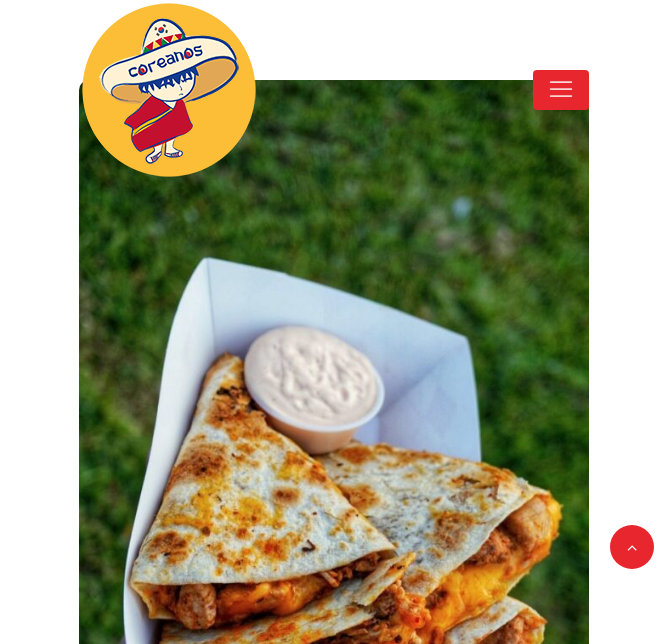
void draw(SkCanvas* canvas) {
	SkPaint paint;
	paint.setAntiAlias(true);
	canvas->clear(0xffffffff);
	canvas->drawImageRect(SkImages::DeferredFromEncodedData(SkData::MakeFromFileName("img3.png")), SkRect::MakeXYWH(79, 80, 510, 564), SkSamplingOptions());
	canvas->drawImageRect(SkImages::DeferredFromEncodedData(SkData::MakeFromFileName("img1.png")), SkRect::MakeXYWH(82, 3, 174, 174), SkSamplingOptions());
	paint.setColor(0xffe7272d);
	canvas->drawRoundRect(SkRect::MakeXYWH(533, 70, 56, 40), 4, 4, paint);
	canvas->drawImageRect(SkImages::DeferredFromEncodedData(SkData::MakeFromFileName("img2.png")), SkRect::MakeXYWH(549, 81, 24, 16), SkSamplingOptions());
	canvas->drawCircle(632, 547, 22, paint);
	canvas->drawImageRect(SkImages::DeferredFromEncodedData(SkData::MakeFromFileName("img4.png")), SkRect::MakeXYWH(627, 545, 10, 6), SkSamplingOptions());
}
